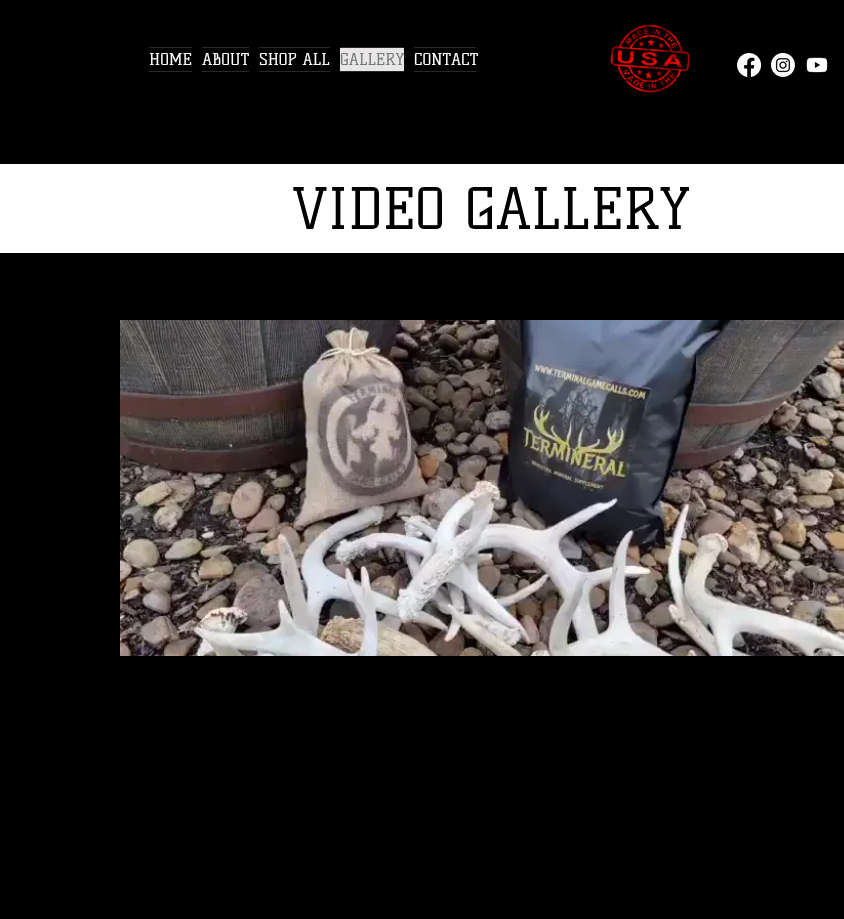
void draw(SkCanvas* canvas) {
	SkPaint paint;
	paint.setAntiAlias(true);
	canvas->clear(0xff000000);
	paint.setColor(0xff282828);
	canvas->drawRect(SkRect::MakeXYWH(149, 47, 43, 1), paint);
	canvas->drawRect(SkRect::MakeXYWH(149, 71, 43, 1), paint);
	SkFont f1(fontMgr->matchFamilyStyle("Kelly Slab", SkFontStyle::Normal()), 16);
	f1.setSubpixel(true);
	paint.setColor(0xffffffff);
	canvas->drawString("HOME", 149, 65, f1, paint);
	paint.setColor(0xff282828);
	canvas->drawRect(SkRect::MakeXYWH(202, 47, 47, 1), paint);
	canvas->drawRect(SkRect::MakeXYWH(202, 71, 47, 1), paint);
	paint.setColor(0xffffffff);
	canvas->drawString("ABOUT", 202, 65, f1, paint);
	paint.setColor(0xff282828);
	canvas->drawRect(SkRect::MakeXYWH(259, 47, 71, 1), paint);
	canvas->drawRect(SkRect::MakeXYWH(259, 71, 71, 1), paint);
	paint.setColor(0xffffffff);
	canvas->drawString("SHOP ALL", 259, 65, f1, paint);
	paint.setColor(0xffe8e6e6);
	canvas->drawRect(SkRect::MakeXYWH(340, 48, 64, 23), paint);
	paint.setColor(0xff282828);
	canvas->drawRect(SkRect::MakeXYWH(340, 47, 64, 1), paint);
	canvas->drawRect(SkRect::MakeXYWH(340, 71, 64, 1), paint);
	paint.setColor(0xff777777);
	canvas->drawString("GALLERY", 340, 65, f1, paint);
	paint.setColor(0xff282828);
	canvas->drawRect(SkRect::MakeXYWH(414, 47, 62, 1), paint);
	canvas->drawRect(SkRect::MakeXYWH(414, 71, 62, 1), paint);
	paint.setColor(0xffffffff);
	canvas->drawString("CONTACT", 414, 65, f1, paint);
	canvas->drawImageRect(SkImages::DeferredFromEncodedData(SkData::MakeFromFileName("img1.png")), SkRect::MakeXYWH(610, 24, 80, 69), SkSamplingOptions());
	canvas->drawImageRect(SkImages::DeferredFromEncodedData(SkData::MakeFromFileName("img2.png")), SkRect::MakeXYWH(737, 53, 24, 24), SkSamplingOptions());
	canvas->drawImageRect(SkImages::DeferredFromEncodedData(SkData::MakeFromFileName("img3.png")), SkRect::MakeXYWH(771, 53, 24, 24), SkSamplingOptions());
	canvas->drawImageRect(SkImages::DeferredFromEncodedData(SkData::MakeFromFileName("img4.png")), SkRect::MakeXYWH(806, 57, 22, 16), SkSamplingOptions());
	canvas->drawRect(SkRect::MakeXYWH(0, 164, 844, 89), paint);
	SkFont f2(fontMgr->matchFamilyStyle("Kelly Slab", SkFontStyle::Normal()), 56);
	f2.setSubpixel(true);
	paint.setColor(0xff000000);
	canvas->drawString("VIDEO GALLERY", 292, 229, f2, paint);
	canvas->drawImageRect(SkImages::DeferredFromEncodedData(SkData::MakeFromFileName("img5.png")), SkRect::MakeXYWH(120, 320, 724, 336), SkSamplingOptions());
}
